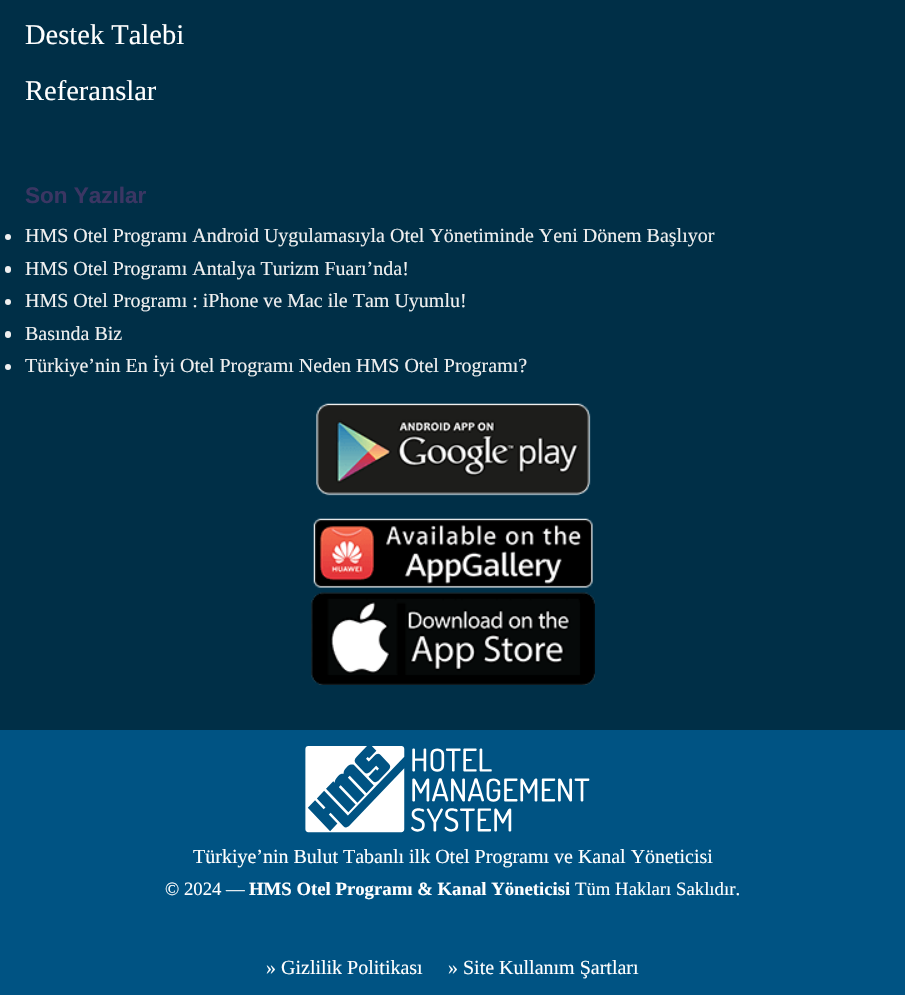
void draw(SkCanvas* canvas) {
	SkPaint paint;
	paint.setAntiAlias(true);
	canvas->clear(0xff002f47);
	SkFont f1(fontMgr->matchFamilyStyle("Liberation Serif", SkFontStyle::Normal()), 28.5);
	f1.setSubpixel(true);
	paint.setColor(0xffffffff);
	canvas->drawString("Destek Talebi", 25, 44, f1, paint);
	canvas->drawString("Referanslar", 25, 100, f1, paint);
	SkFont f2(fontMgr->matchFamilyStyle("Liberation Sans", SkFontStyle::Bold()), 22.5);
	f2.setSubpixel(true);
	paint.setColor(0xff3b3663);
	canvas->drawString("Son Yazılar", 25, 203, f2, paint);
	paint.setColor(0xfff0f0f0);
	canvas->drawCircle(8, 237, 3, paint);
	SkFont f3(fontMgr->matchFamilyStyle("Liberation Serif", SkFontStyle::Normal()), 20);
	f3.setSubpixel(true);
	canvas->drawString("HMS Otel Programı Android Uygulamasıyla Otel Yönetiminde Yeni Dönem Başlıyor", 25, 242, f3, paint);
	canvas->drawRoundRect(SkRect::MakeXYWH(5, 266, 6, 7), 3, 3, paint);
	canvas->drawString("HMS Otel Programı Antalya Turizm Fuarı’nda!", 25, 275, f3, paint);
	canvas->drawCircle(8, 302, 3, paint);
	canvas->drawString("HMS Otel Programı : iPhone ve Mac ile Tam Uyumlu!", 25, 307, f3, paint);
	canvas->drawRoundRect(SkRect::MakeXYWH(5, 331, 6, 7), 3, 3, paint);
	canvas->drawString("Basında Biz", 25, 340, f3, paint);
	canvas->drawCircle(8, 367, 3, paint);
	canvas->drawString("Türkiye’nin En İyi Otel Programı Neden HMS Otel Programı?", 25, 372, f3, paint);
	canvas->drawImageRect(SkImages::DeferredFromEncodedData(SkData::MakeFromFileName("img1.png")), SkRect::MakeXYWH(316, 403, 275, 93), SkSamplingOptions());
	canvas->drawImageRect(SkImages::DeferredFromEncodedData(SkData::MakeFromFileName("img2.png")), SkRect::MakeXYWH(313, 518, 280, 70), SkSamplingOptions());
	canvas->drawImageRect(SkImages::DeferredFromEncodedData(SkData::MakeFromFileName("img3.png")), SkRect::MakeXYWH(311, 592, 284, 93), SkSamplingOptions());
	paint.setColor(0xff005383);
	canvas->drawRect(SkRect::MakeXYWH(0, 730, 905, 265), paint);
	canvas->drawImageRect(SkImages::DeferredFromEncodedData(SkData::MakeFromFileName("img4.png")), SkRect::MakeXYWH(305, 746, 285, 87), SkSamplingOptions());
	paint.setColor(0xffffffff);
	canvas->drawString("Türkiye’nin Bulut Tabanlı ilk Otel Programı ve Kanal Yöneticisi", 193, 863, f3, paint);
	SkFont f4(fontMgr->matchFamilyStyle("Liberation Serif", SkFontStyle::Normal()), 18.75);
	f4.setSubpixel(true);
	canvas->drawString("© 2024 —", 165, 895, f4, paint);
	SkFont f5(fontMgr->matchFamilyStyle("Liberation Serif", SkFontStyle::Bold()), 18.75);
	f5.setSubpixel(true);
	canvas->drawString("HMS Otel Programı & Kanal Yöneticisi", 249, 895, f5, paint);
	canvas->drawString("Tüm Hakları Saklıdır.", 575, 895, f4, paint);
	canvas->drawString("» Gizlilik Politikası", 266, 974, f3, paint);
	canvas->drawString("» Site Kullanım Şartları", 448, 974, f3, paint);
}
